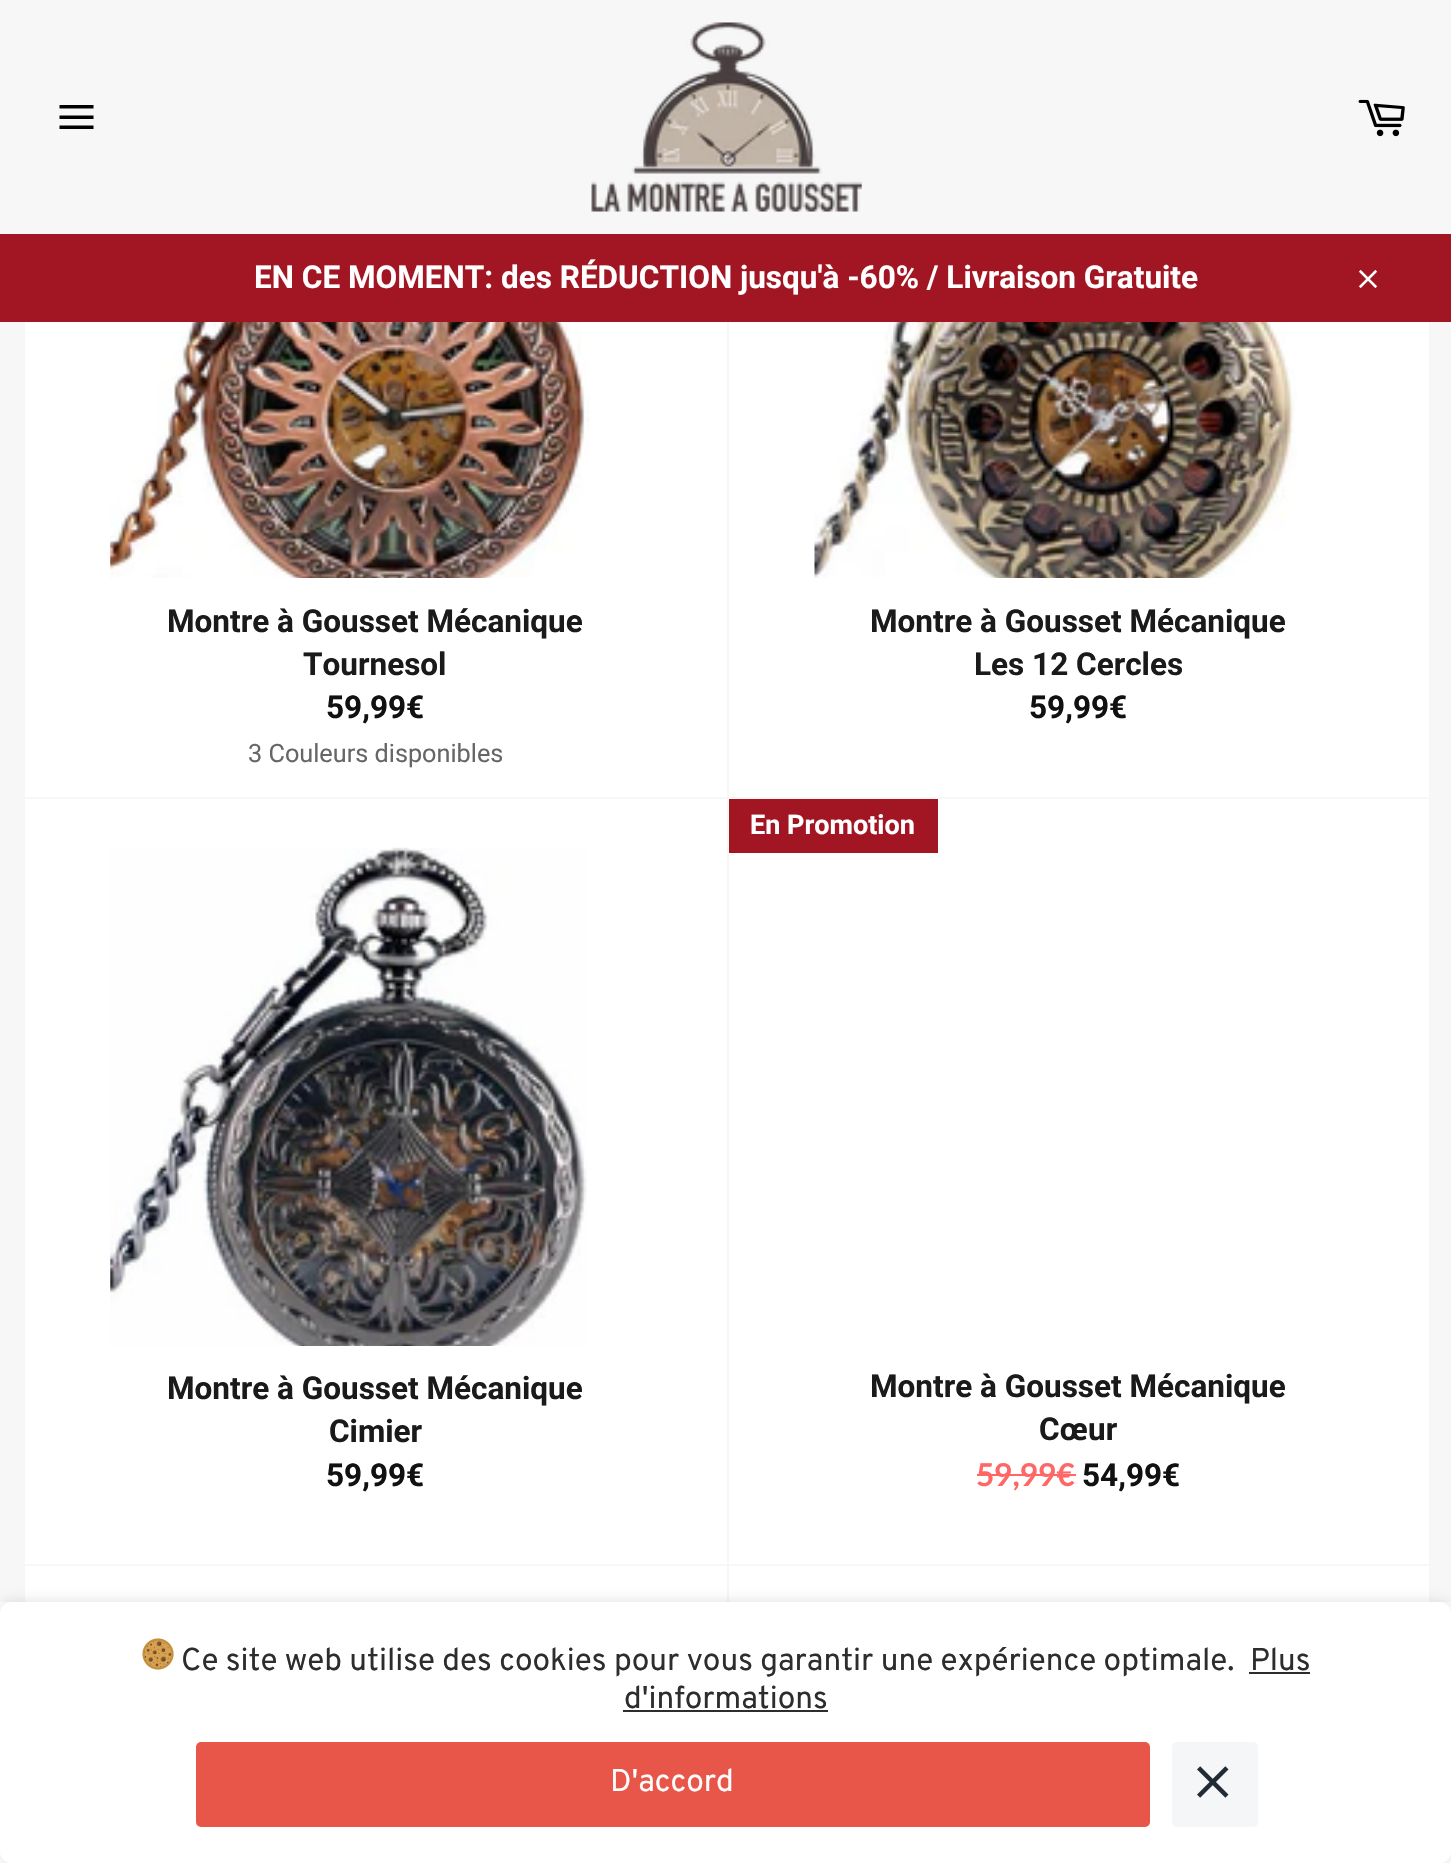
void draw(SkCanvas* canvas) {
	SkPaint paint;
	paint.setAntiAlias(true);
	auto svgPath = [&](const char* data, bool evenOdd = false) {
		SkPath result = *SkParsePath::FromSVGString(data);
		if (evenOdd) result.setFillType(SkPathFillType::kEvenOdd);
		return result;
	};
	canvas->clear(0xfff7f7f7);
	paint.setColor(0xff000000);
	canvas->drawPath(svgPath("M59.5 115.5H93.5V119H59.5ZM59.5 105H93.5V108.5H59.5ZM59.5 125.5H93.5V129H59.5Z"), paint);
	canvas->drawImageRect(SkImages::DeferredFromEncodedData(SkData::MakeFromFileName("img1.png")), SkRect::MakeXYWH(591, 22, 271, 190), SkSamplingOptions());
	canvas->drawImageRect(SkImages::DeferredFromEncodedData(SkData::MakeFromFileName("img2.png")), SkRect::MakeXYWH(1358, 99, 47, 38), SkSamplingOptions());
	paint.setColor(0xffa21523);
	canvas->drawRect(SkRect::MakeXYWH(0, 234, 1451, 88), paint);
	SkFont f1(fontMgr->matchFamilyStyle("Roboto", SkFontStyle::Bold()), 31.5);
	f1.setSubpixel(true);
	paint.setColor(0xffffffff);
	canvas->drawString("EN CE MOMENT: des RÉDUCTION jusqu'à -60% / Livraison Gratuite", 254, 288, f1, paint);
	canvas->drawImageRect(SkImages::DeferredFromEncodedData(SkData::MakeFromFileName("img3.png")), SkRect::MakeXYWH(1358, 269, 20, 20), SkSamplingOptions());
	canvas->drawRect(SkRect::MakeXYWH(25, 322, 702, 475), paint);
	canvas->drawImageRect(SkImages::DeferredFromEncodedData(SkData::MakeFromFileName("img4.png")), SkRect::MakeXYWH(110, 322, 480, 256), SkSamplingOptions());
	paint.setColor(0xff1a1a1a);
	canvas->drawString("Montre à Gousset Mécanique", 167, 632, f1, paint);
	canvas->drawString("Tournesol", 303, 675, f1, paint);
	paint.setColor(0xff111111);
	canvas->drawString("59,99€", 326, 718, f1, paint);
	SkFont f2(fontMgr->matchFamilyStyle("Roboto", SkFontStyle::Normal()), 25.25);
	f2.setSubpixel(true);
	paint.setColor(0xff666666);
	canvas->drawString("3 Couleurs disponibles", 248, 762, f2, paint);
	paint.setColor(0xffffffff);
	canvas->drawRect(SkRect::MakeXYWH(729, 322, 700, 475), paint);
	canvas->drawImageRect(SkImages::DeferredFromEncodedData(SkData::MakeFromFileName("img5.png")), SkRect::MakeXYWH(814, 322, 483, 256), SkSamplingOptions());
	paint.setColor(0xff1a1a1a);
	canvas->drawString("Montre à Gousset Mécanique", 870, 632, f1, paint);
	canvas->drawString("Les 12 Cercles", 974, 675, f1, paint);
	paint.setColor(0xff111111);
	canvas->drawString("59,99€", 1029, 718, f1, paint);
	paint.setColor(0xffffffff);
	canvas->drawRect(SkRect::MakeXYWH(25, 799, 702, 765), paint);
	canvas->drawImageRect(SkImages::DeferredFromEncodedData(SkData::MakeFromFileName("img6.png")), SkRect::MakeXYWH(110, 847, 477, 499), SkSamplingOptions());
	paint.setColor(0xff1a1a1a);
	canvas->drawString("Montre à Gousset Mécanique", 167, 1399, f1, paint);
	canvas->drawString("Cimier", 329, 1442, f1, paint);
	paint.setColor(0xff111111);
	canvas->drawString("59,99€", 326, 1486, f1, paint);
	paint.setColor(0xffffffff);
	canvas->drawRect(SkRect::MakeXYWH(729, 799, 700, 765), paint);
	paint.setColor(0xffa21523);
	canvas->drawRect(SkRect::MakeXYWH(729, 799, 209, 54), paint);
	SkFont f3(fontMgr->matchFamilyStyle("Roboto", SkFontStyle::Bold()), 27);
	f3.setSubpixel(true);
	paint.setColor(0xffffffff);
	canvas->drawString("En Promotion", 750, 834, f3, paint);
	paint.setColor(0xff1a1a1a);
	canvas->drawString("Montre à Gousset Mécanique", 870, 1397, f1, paint);
	canvas->drawString("Cœur", 1039, 1440, f1, paint);
	SkFont f4(fontMgr->matchFamilyStyle("Lato", SkFontStyle::Bold()), 31.5);
	f4.setSubpixel(true);
	paint.setColor(0xffff6666);
	canvas->drawString("59,99€", 976, 1486, f4, paint);
	canvas->drawRect(SkRect::MakeXYWH(977, 1474, 99, 2), paint);
	paint.setColor(0xff111111);
	canvas->drawString("54,99€", 1082, 1486, f1, paint);
	paint.setColor(0xffffffff);
	canvas->drawRect(SkRect::MakeXYWH(25, 1566, 702, 36), paint);
	canvas->drawRect(SkRect::MakeXYWH(729, 1566, 700, 36), paint);
	canvas->drawRect(SkRect::MakeXYWH(0, 1602, 1451, 261), paint);
	canvas->save();
	canvas->clipPath(svgPath("M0 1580H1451V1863H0ZM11 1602H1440C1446 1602 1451 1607 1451 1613V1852C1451 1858 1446 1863 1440 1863H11C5 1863 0 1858 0 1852V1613C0 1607 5 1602 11 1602Z", true), true);
	paint.setColor(0x1f000000);
	paint.setMaskFilter(SkMaskFilter::MakeBlur(kNormal_SkBlurStyle, 7));
	canvas->drawRoundRect(SkRect::MakeXYWH(0, 1602, 1451, 261), 11, 11, paint);
	paint.setMaskFilter(nullptr);
	canvas->restore();
	canvas->drawImageRect(SkImages::DeferredFromEncodedData(SkData::MakeFromFileName("img7.png")), SkRect::MakeXYWH(142, 1638, 32, 32), SkSamplingOptions());
	SkFont f5(fontMgr->matchFamilyStyle("Overpass", SkFontStyle::Normal()), 31.5);
	f5.setSubpixel(true);
	paint.setColor(0xff2d2d2d);
	canvas->drawString("Ce site web utilise des cookies pour vous garantir une expérience optimale.", 181, 1670, f5, paint);
	canvas->drawString("Plus", 1250, 1670, f5, paint);
	canvas->drawRect(SkRect::MakeXYWH(1249, 1672, 61, 2), paint);
	canvas->drawString("d'informations", 624, 1708, f5, paint);
	canvas->drawRect(SkRect::MakeXYWH(623, 1710, 205, 2), paint);
	paint.setColor(0xffe85649);
	canvas->drawRoundRect(SkRect::MakeXYWH(196, 1742, 954, 85), 5, 5, paint);
	paint.setColor(0xffffffff);
	canvas->drawString("D'accord", 610, 1791, f5, paint);
	paint.setColor(0xfff4f6f8);
	canvas->drawRoundRect(SkRect::MakeXYWH(1172, 1742, 86, 85), 5, 5, paint);
	canvas->drawImageRect(SkImages::DeferredFromEncodedData(SkData::MakeFromFileName("img8.png")), SkRect::MakeXYWH(1197, 1766, 32, 32), SkSamplingOptions());
}
